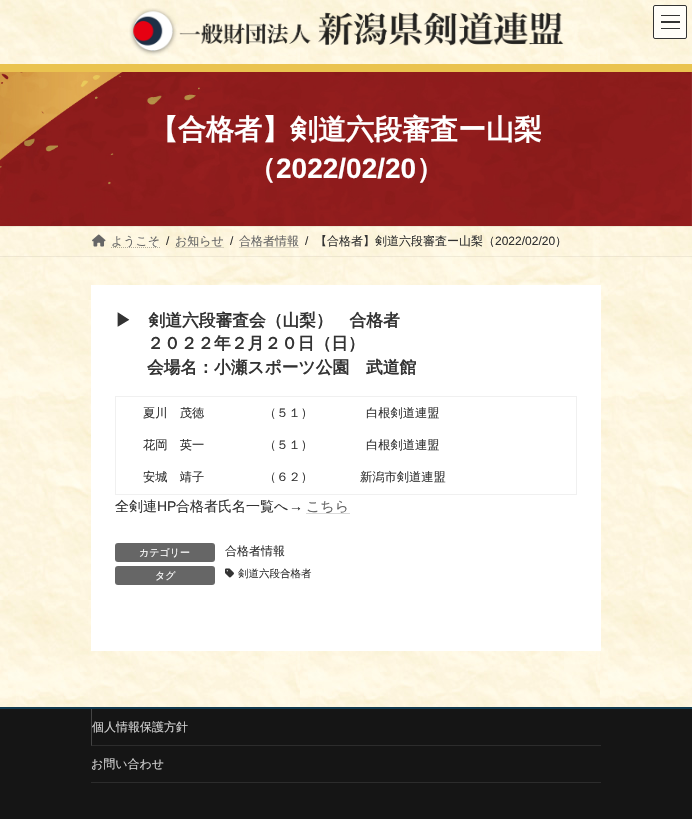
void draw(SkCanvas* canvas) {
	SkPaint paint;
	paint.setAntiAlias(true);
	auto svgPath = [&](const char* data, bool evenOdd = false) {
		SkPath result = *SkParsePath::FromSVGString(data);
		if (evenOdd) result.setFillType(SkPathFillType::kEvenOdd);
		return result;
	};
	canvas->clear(0xffffffff);
	canvas->drawImageRect(SkImages::DeferredFromEncodedData(SkData::MakeFromFileName("img1.png")), SkRect::MakeXYWH(0, 0, 692, 707), SkSamplingOptions());
	paint.setColor(0xccffffff);
	canvas->drawRoundRect(SkRect::MakeXYWH(653, 5, 34, 34), 2, 2, paint);
	paint.setColor(0xcc000000);
	canvas->drawRect(SkRect::MakeXYWH(661, 15, 19, 1), paint);
	paint.setColor(0xff333332);
	canvas->drawRect(SkRect::MakeXYWH(661, 21, 19, 2), paint);
	canvas->drawRect(SkRect::MakeXYWH(661, 28, 19, 1), paint);
	paint.setStroke(true);
	paint.setStrokeWidth(1);
	paint.setColor(0xff333333);
	canvas->drawRoundRect(SkRect::MakeXYWH(653.5, 5.5, 33, 33), 1.5, 1.5, paint);
	canvas->drawImageRect(SkImages::DeferredFromEncodedData(SkData::MakeFromFileName("img2.png")), SkRect::MakeXYWH(129, 8, 435, 48), SkSamplingOptions());
	paint.setStroke(false);
	paint.setColor(0xffeac34f);
	canvas->drawRect(SkRect::MakeXYWH(0, 64, 692, 8), paint);
	canvas->drawImageRect(SkImages::DeferredFromEncodedData(SkData::MakeFromFileName("img3.png")), SkRect::MakeXYWH(0, 72, 692, 154), SkSamplingOptions());
	SkFont f1(fontMgr->matchFamilyStyle("WenQuanYi Zen Hei", SkFontStyle::Bold()), 28);
	f1.setSubpixel(true);
	paint.setColor(0xffffffff);
	canvas->drawString("【合格者】剣道六段審査ー山梨", 150, 139, f1, paint);
	canvas->drawString("（", 248, 178, f1, paint);
	SkFont f2(fontMgr->matchFamilyStyle("Liberation Sans", SkFontStyle::Bold()), 28);
	f2.setSubpixel(true);
	canvas->drawString("2022/02/20", 276, 178, f2, paint);
	canvas->drawString("）", 416, 178, f1, paint);
	paint.setColor(0x0f000000);
	canvas->drawRect(SkRect::MakeXYWH(0, 226, 692, 1), paint);
	canvas->drawRect(SkRect::MakeXYWH(0, 256, 692, 1), paint);
	canvas->drawImageRect(SkImages::DeferredFromEncodedData(SkData::MakeFromFileName("img4.png")), SkRect::MakeXYWH(92, 234, 14, 13), SkSamplingOptions());
	paint.setStroke(true);
	paint.setColor(0x4d000000);
	paint.setPathEffect(SkDashPathEffect::Make({{1, 1}}, 0));
	canvas->drawPath(svgPath("M111 247.5H160"), paint);
	paint.setPathEffect(nullptr);
	SkFont f3(fontMgr->matchFamilyStyle("WenQuanYi Zen Hei", SkFontStyle(500, SkFontStyle::kNormal_Width, SkFontStyle::kUpright_Slant)), 12);
	f3.setSubpixel(true);
	paint.setStroke(false);
	paint.setColor(0xff666666);
	canvas->drawString("ようこそ", 111, 245, f3, paint);
	SkFont f4(fontMgr->matchFamilyStyle("Liberation Sans", SkFontStyle::Normal()), 12);
	f4.setSubpixel(true);
	paint.setColor(0xff333333);
	canvas->drawString("/", 166, 245, f4, paint);
	paint.setColor(0xff666666);
	canvas->drawString("お知らせ", 175, 245, f3, paint);
	paint.setStroke(true);
	paint.setColor(0x4d000000);
	paint.setPathEffect(SkDashPathEffect::Make({{1, 1}}, 0));
	canvas->drawPath(svgPath("M175.5 247.5H224"), paint);
	paint.setPathEffect(nullptr);
	paint.setStroke(false);
	paint.setColor(0xff333333);
	canvas->drawString("/", 230, 245, f4, paint);
	paint.setColor(0xff666666);
	canvas->drawString("合格者情報", 239, 245, f3, paint);
	paint.setStroke(true);
	paint.setColor(0x4d000000);
	paint.setPathEffect(SkDashPathEffect::Make({{1, 1}}, 0));
	canvas->drawPath(svgPath("M239.5 247.5H299.5"), paint);
	paint.setPathEffect(nullptr);
	paint.setStroke(false);
	paint.setColor(0xff333333);
	canvas->drawString("/", 305, 245, f4, paint);
	canvas->drawString("【合格者】剣道六段審査ー山梨（", 315, 245, f3, paint);
	canvas->drawString("2022/02/20", 495, 245, f4, paint);
	canvas->drawString("）", 555, 245, f3, paint);
	paint.setColor(0xffffffff);
	canvas->drawRect(SkRect::MakeXYWH(91, 285, 510, 366), paint);
	SkFont f5(fontMgr->matchFamilyStyle("WenQuanYi Zen Hei", SkFontStyle::Bold()), 16.75);
	f5.setSubpixel(true);
	paint.setColor(0xff333333);
	canvas->drawString("▶　剣道六段審査会（山梨）　合格者", 115, 326, f5, paint);
	canvas->drawString("２０２２年２月２０日（日）", 147, 349, f5, paint);
	canvas->drawString("会場名：小瀬スポーツ公園　武道館", 147, 373, f5, paint);
	paint.setStroke(true);
	paint.setColor(0xfff0f0f0);
	canvas->drawRect(SkRect::MakeXYWH(115.5, 396.5, 461, 98), paint);
	SkFont f6(fontMgr->matchFamilyStyle("WenQuanYi Zen Hei", SkFontStyle(500, SkFontStyle::kNormal_Width, SkFontStyle::kUpright_Slant)), 12.25);
	f6.setSubpixel(true);
	paint.setStroke(false);
	paint.setColor(0xff333333);
	canvas->drawString("夏川　茂徳", 143, 417, f6, paint);
	canvas->drawString("（５１）", 264, 417, f6, paint);
	canvas->drawString("白根剣道連盟", 366, 417, f6, paint);
	canvas->drawString("花岡　英一", 143, 449, f6, paint);
	canvas->drawString("（５１）", 264, 449, f6, paint);
	canvas->drawString("白根剣道連盟", 366, 449, f6, paint);
	canvas->drawString("安城　靖子", 143, 481, f6, paint);
	canvas->drawString("（６２）", 264, 481, f6, paint);
	canvas->drawString("新潟市剣道連盟", 360, 481, f6, paint);
	SkFont f7(fontMgr->matchFamilyStyle("WenQuanYi Zen Hei", SkFontStyle(500, SkFontStyle::kNormal_Width, SkFontStyle::kUpright_Slant)), 14);
	f7.setSubpixel(true);
	canvas->drawString("全剣連", 115, 511, f7, paint);
	SkFont f8(fontMgr->matchFamilyStyle("Liberation Sans", SkFontStyle::Normal()), 14);
	f8.setSubpixel(true);
	canvas->drawString("HP", 157, 511, f8, paint);
	canvas->drawString("合格者氏名一覧へ", 176, 511, f7, paint);
	canvas->drawString("→", 289, 511, f8, paint);
	paint.setColor(0xff666666);
	canvas->drawString("こちら", 306, 511, f7, paint);
	paint.setStroke(true);
	paint.setColor(0xffb3b3b3);
	paint.setPathEffect(SkDashPathEffect::Make({{1, 1}}, 0));
	canvas->drawPath(svgPath("M306.5 513.5H349.5"), paint);
	paint.setPathEffect(nullptr);
	paint.setStroke(false);
	paint.setColor(0xff666666);
	canvas->drawRoundRect(SkRect::MakeXYWH(115, 543, 100, 19), 3, 3, paint);
	SkFont f9(fontMgr->matchFamilyStyle("WenQuanYi Zen Hei", SkFontStyle(500, SkFontStyle::kNormal_Width, SkFontStyle::kUpright_Slant)), 10);
	f9.setSubpixel(true);
	paint.setColor(0xffffffff);
	canvas->drawString("カテゴリー", 139, 556, f9, paint);
	paint.setColor(0xff333333);
	canvas->drawString("合格者情報", 225, 555, f3, paint);
	paint.setColor(0xff666666);
	canvas->drawRoundRect(SkRect::MakeXYWH(115, 566, 100, 19), 3, 3, paint);
	paint.setColor(0xffffffff);
	canvas->drawString("タグ", 155, 579, f9, paint);
	canvas->drawImageRect(SkImages::DeferredFromEncodedData(SkData::MakeFromFileName("img5.png")), SkRect::MakeXYWH(225, 568, 9, 10), SkSamplingOptions());
	SkFont f10(fontMgr->matchFamilyStyle("WenQuanYi Zen Hei", SkFontStyle(500, SkFontStyle::kNormal_Width, SkFontStyle::kUpright_Slant)), 10.5);
	f10.setSubpixel(true);
	paint.setColor(0xff333333);
	canvas->drawString("剣道六段合格者", 238, 577, f10, paint);
	paint.setColor(0xff151515);
	canvas->drawRect(SkRect::MakeXYWH(0, 709, 692, 110), paint);
	paint.setColor(0xff113a4f);
	canvas->drawRect(SkRect::MakeXYWH(0, 707, 692, 2), paint);
	paint.setColor(0xff2c2c2c);
	canvas->drawPath(svgPath("M601 746H91L92 745H601Z"), paint);
	paint.setColor(0x33ffffff);
	canvas->drawPath(svgPath("M91 746V709H92V745Z"), paint);
	paint.setColor(0xffd0d0d0);
	canvas->drawString("個人情報保護方針", 92, 731, f3, paint);
	paint.setColor(0xff2c2c2c);
	canvas->drawRect(SkRect::MakeXYWH(91, 782, 510, 1), paint);
	paint.setColor(0xffd0d0d0);
	canvas->drawString("お問い合わせ", 91, 768, f3, paint);
}
